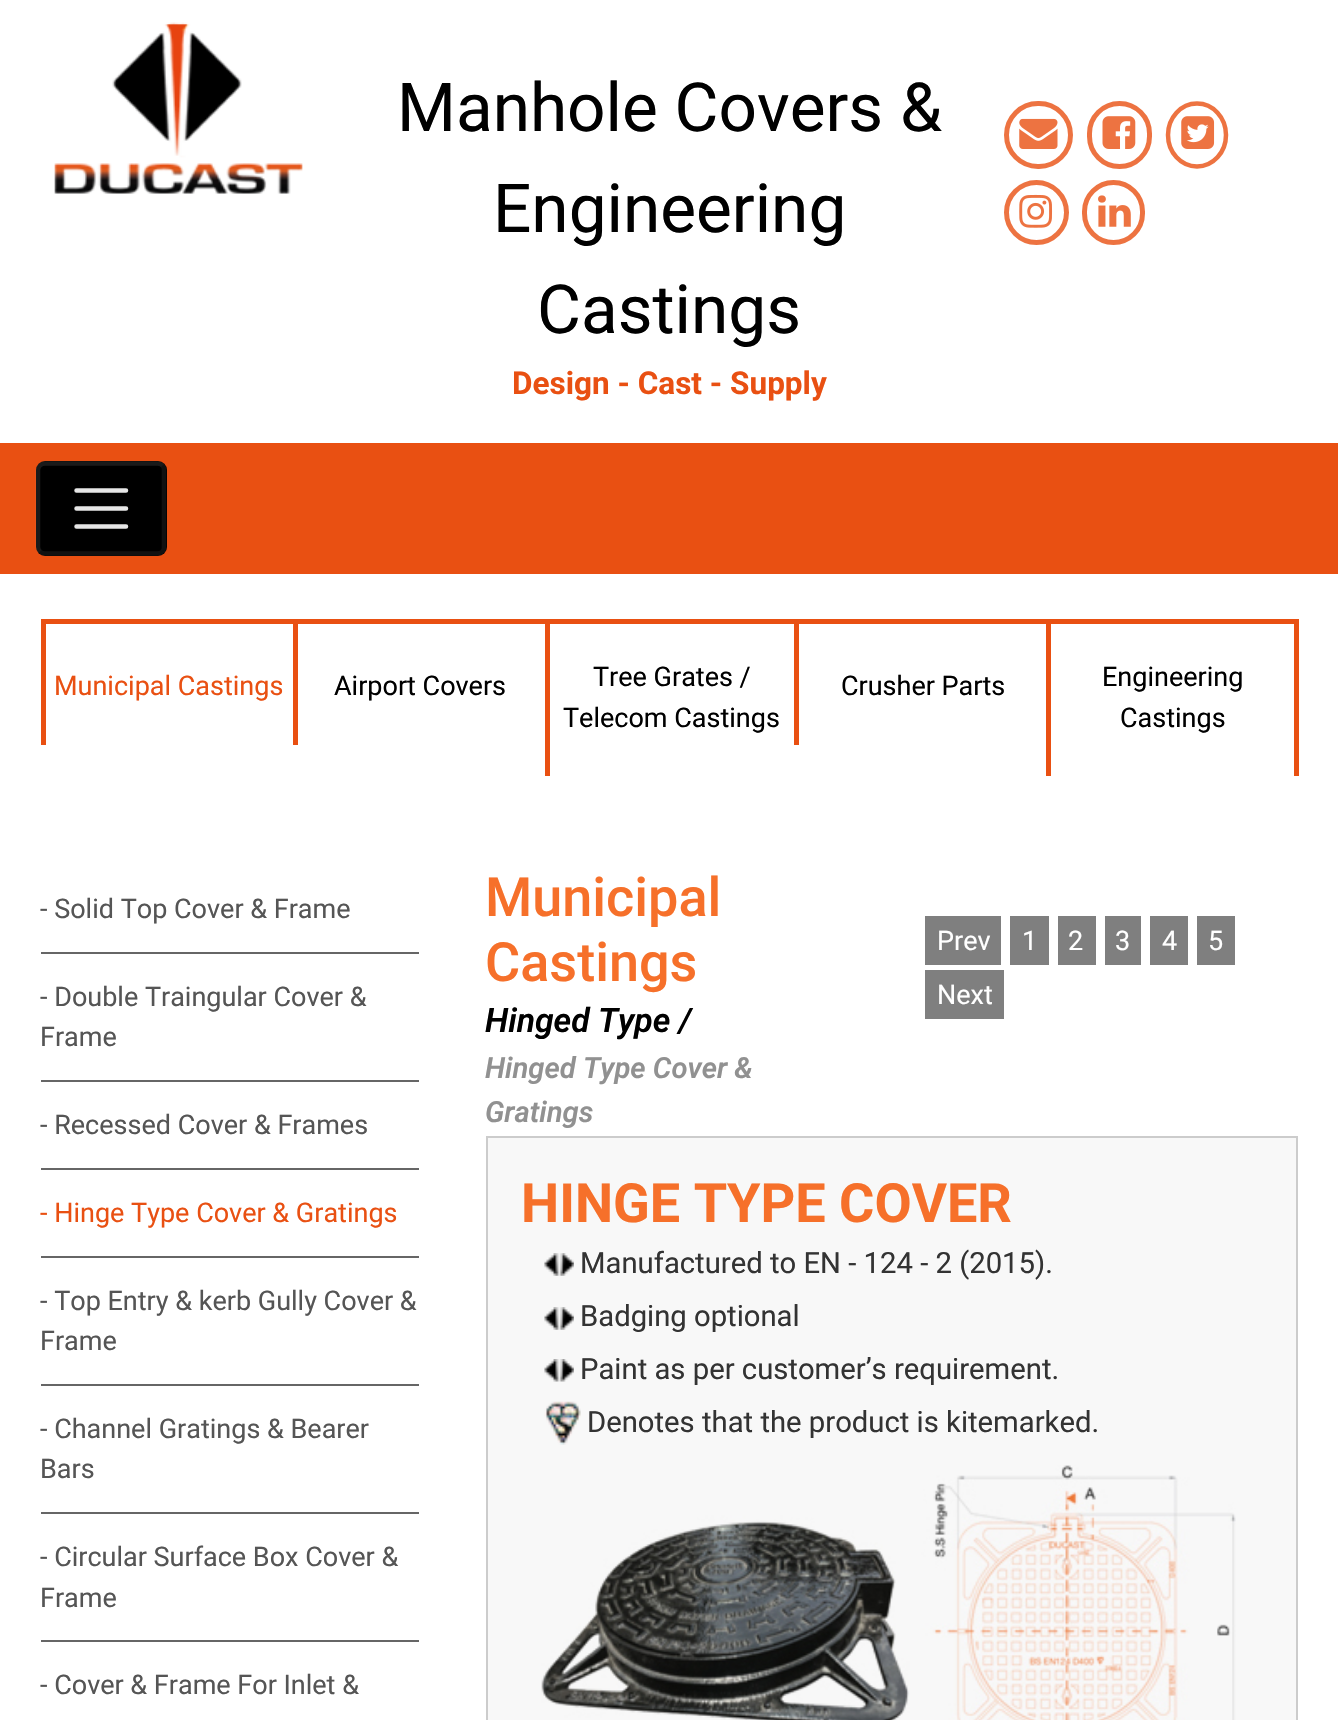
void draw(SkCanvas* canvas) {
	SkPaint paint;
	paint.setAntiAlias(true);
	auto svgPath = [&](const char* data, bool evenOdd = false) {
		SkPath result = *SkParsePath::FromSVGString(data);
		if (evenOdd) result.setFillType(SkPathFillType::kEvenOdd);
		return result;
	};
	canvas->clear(0xffffffff);
	canvas->drawImageRect(SkImages::DeferredFromEncodedData(SkData::MakeFromFileName("img1.png")), SkRect::MakeXYWH(54, 22, 249, 172), SkSamplingOptions());
	SkFont f1(fontMgr->matchFamilyStyle("Roboto", SkFontStyle::Normal()), 67.5);
	f1.setSubpixel(true);
	paint.setColor(0xff000000);
	canvas->drawString("Manhole Covers &", 397, 131, f1, paint);
	canvas->drawString("Engineering", 493, 232, f1, paint);
	canvas->drawString("Castings", 537, 333, f1, paint);
	SkFont f2(fontMgr->matchFamilyStyle("Roboto", SkFontStyle::Bold()), 31.5);
	f2.setSubpixel(true);
	paint.setColor(0xffe95012);
	canvas->drawString("Design - Cast - Supply", 512, 394, f2, paint);
	paint.setStroke(true);
	paint.setStrokeWidth(5);
	paint.setColor(0xffed7341);
	canvas->drawRoundRect(SkRect::MakeXYWH(1006.5, 103.5, 64, 63), 31.5, 31.5, paint);
	canvas->drawImageRect(SkImages::DeferredFromEncodedData(SkData::MakeFromFileName("img2.png")), SkRect::MakeXYWH(1019, 118, 39, 31), SkSamplingOptions());
	canvas->drawRoundRect(SkRect::MakeXYWH(1089.5, 103.5, 60, 63), 30, 30, paint);
	canvas->drawImageRect(SkImages::DeferredFromEncodedData(SkData::MakeFromFileName("img3.png")), SkRect::MakeXYWH(1102, 116, 34, 33), SkSamplingOptions());
	paint.setStrokeWidth(4.5);
	canvas->drawPath(svgPath("M1197 103.5C1213 103.5 1226 117.5 1226 135C1226 152.5 1213 166.5 1197 166.5C1181 166.5 1168 152.5 1168 135C1168 117.5 1181 103.5 1197 103.5Z"), paint);
	canvas->drawImageRect(SkImages::DeferredFromEncodedData(SkData::MakeFromFileName("img4.png")), SkRect::MakeXYWH(1181, 116, 34, 33), SkSamplingOptions());
	paint.setStrokeWidth(5);
	canvas->drawCircle(1036.5, 212.5, 30, paint);
	canvas->drawImageRect(SkImages::DeferredFromEncodedData(SkData::MakeFromFileName("img5.png")), SkRect::MakeXYWH(1019, 194, 34, 34), SkSamplingOptions());
	canvas->drawRoundRect(SkRect::MakeXYWH(1084.5, 182.5, 58, 60), 29, 29, paint);
	canvas->drawImageRect(SkImages::DeferredFromEncodedData(SkData::MakeFromFileName("img6.png")), SkRect::MakeXYWH(1098, 195, 33, 32), SkSamplingOptions());
	paint.setStroke(false);
	paint.setColor(0xffe95012);
	canvas->drawRect(SkRect::MakeXYWH(0, 443, 1338, 131), paint);
	paint.setColor(0xff000000);
	canvas->drawRoundRect(SkRect::MakeXYWH(36, 461, 131, 95), 9, 9, paint);
	paint.setStroke(true);
	paint.setStrokeWidth(4.5);
	paint.setColor(0x1aaaaaaa);
	canvas->drawPath(svgPath("M162.5 465.5C163.5 466.5 164 468.5 164 470V547C164 548.5 163.5 550.5 162.5 551.5C161 553 159.5 553.5 157.5 553.5H45C43 553.5 41.5 553 40 551.5"), paint);
	paint.setColor(0x1affffff);
	canvas->drawPath(svgPath("M40 551.5C39 550.5 38 548.5 38 547V470C38 468.5 39 466.5 40 465.5C41.5 464 43 463.5 45 463.5H157.5C159.5 463.5 161 464 162.5 465.5"), paint);
	paint.setStrokeCap(SkPaint::kRound_Cap);
	paint.setColor(0xffe6e6e6);
	canvas->drawPath(svgPath("M76.5 490.5H126M76.5 508.5H126M76.5 526.5H126"), paint);
	paint.setStroke(false);
	paint.setColor(0xffe95012);
	canvas->drawRect(SkRect::MakeXYWH(41, 619, 1257, 5), paint);
	canvas->drawRect(SkRect::MakeXYWH(41, 619, 5, 126), paint);
	SkFont f3(fontMgr->matchFamilyStyle("Roboto", SkFontStyle::Normal()), 27);
	f3.setSubpixel(true);
	canvas->drawString("Municipal Castings", 54, 695, f3, paint);
	canvas->drawRect(SkRect::MakeXYWH(293, 619, 5, 126), paint);
	paint.setColor(0xff000000);
	canvas->drawString("Airport Covers", 334, 695, f3, paint);
	paint.setColor(0xffe95012);
	canvas->drawRect(SkRect::MakeXYWH(545, 619, 5, 157), paint);
	paint.setColor(0xff000000);
	canvas->drawString("Tree Grates /", 593, 686, f3, paint);
	canvas->drawString("Telecom Castings", 563, 727, f3, paint);
	paint.setColor(0xffe95012);
	canvas->drawRect(SkRect::MakeXYWH(794, 619, 5, 126), paint);
	paint.setColor(0xff000000);
	canvas->drawString("Crusher Parts", 841, 695, f3, paint);
	paint.setColor(0xffe95012);
	canvas->drawRect(SkRect::MakeXYWH(1294, 619, 5, 157), paint);
	canvas->drawRect(SkRect::MakeXYWH(1046, 619, 5, 157), paint);
	paint.setColor(0xff000000);
	canvas->drawString("Engineering", 1102, 686, f3, paint);
	canvas->drawString("Castings", 1120, 727, f3, paint);
	paint.setColor(0xff666666);
	canvas->drawRect(SkRect::MakeXYWH(41, 952, 378, 2), paint);
	paint.setColor(0xff555555);
	canvas->drawString("- Solid Top Cover & Frame", 40, 918, f3, paint);
	paint.setColor(0xff666666);
	canvas->drawRect(SkRect::MakeXYWH(41, 1080, 378, 2), paint);
	paint.setColor(0xff555555);
	canvas->drawString("- Double Traingular Cover &", 40, 1006, f3, paint);
	canvas->drawString("Frame", 40, 1046, f3, paint);
	paint.setColor(0xff666666);
	canvas->drawRect(SkRect::MakeXYWH(41, 1168, 378, 2), paint);
	paint.setColor(0xff555555);
	canvas->drawString("- Recessed Cover & Frames", 40, 1134, f3, paint);
	paint.setColor(0xff666666);
	canvas->drawRect(SkRect::MakeXYWH(41, 1256, 378, 2), paint);
	paint.setColor(0xffe95012);
	canvas->drawString("- Hinge Type Cover & Gratings", 40, 1222, f3, paint);
	paint.setColor(0xff666666);
	canvas->drawRect(SkRect::MakeXYWH(41, 1384, 378, 2), paint);
	paint.setColor(0xff555555);
	canvas->drawString("- Top Entry & kerb Gully Cover &", 40, 1310, f3, paint);
	canvas->drawString("Frame", 40, 1350, f3, paint);
	paint.setColor(0xff666666);
	canvas->drawRect(SkRect::MakeXYWH(41, 1512, 378, 2), paint);
	paint.setColor(0xff555555);
	canvas->drawString("- Channel Gratings & Bearer", 40, 1438, f3, paint);
	canvas->drawString("Bars", 40, 1478, f3, paint);
	paint.setColor(0xff666666);
	canvas->drawRect(SkRect::MakeXYWH(41, 1640, 378, 2), paint);
	paint.setColor(0xff555555);
	canvas->drawString("- Circular Surface Box Cover &", 40, 1566, f3, paint);
	canvas->drawString("Frame", 40, 1607, f3, paint);
	canvas->drawString("- Cover & Frame For Inlet &", 40, 1694, f3, paint);
	SkFont f4(fontMgr->matchFamilyStyle("Roboto", SkFontStyle(500, SkFontStyle::kNormal_Width, SkFontStyle::kUpright_Slant)), 54);
	f4.setSubpixel(true);
	paint.setColor(0xfff6702a);
	canvas->drawString("Municipal", 485, 916, f4, paint);
	canvas->drawString("Castings", 485, 981, f4, paint);
	SkFont f5(fontMgr->matchFamilyStyle("Roboto", SkFontStyle(600, SkFontStyle::kNormal_Width, SkFontStyle::kItalic_Slant)), 33.75);
	f5.setSubpixel(true);
	paint.setColor(0xff000000);
	canvas->drawString("Hinged Type /", 485, 1032, f5, paint);
	SkFont f6(fontMgr->matchFamilyStyle("Roboto", SkFontStyle(600, SkFontStyle::kNormal_Width, SkFontStyle::kItalic_Slant)), 29.25);
	f6.setSubpixel(true);
	paint.setColor(0xff919191);
	canvas->drawString("Hinged Type Cover &", 485, 1078, f6, paint);
	canvas->drawString("Gratings", 485, 1122, f6, paint);
	paint.setColor(0xff7f7f7f);
	canvas->drawRect(SkRect::MakeXYWH(925, 916, 76, 49), paint);
	paint.setColor(0xffffffff);
	canvas->drawString("Prev", 937, 950, f3, paint);
	paint.setColor(0xff7f7f7f);
	canvas->drawRect(SkRect::MakeXYWH(1010, 916, 39, 49), paint);
	paint.setColor(0xffffffff);
	canvas->drawString("1", 1022, 950, f3, paint);
	paint.setColor(0xff7f7f7f);
	canvas->drawRect(SkRect::MakeXYWH(1058, 916, 38, 49), paint);
	paint.setColor(0xffffffff);
	canvas->drawString("2", 1068, 950, f3, paint);
	paint.setColor(0xff7f7f7f);
	canvas->drawRect(SkRect::MakeXYWH(1105, 916, 36, 49), paint);
	paint.setColor(0xffffffff);
	canvas->drawString("3", 1115, 950, f3, paint);
	paint.setColor(0xff7f7f7f);
	canvas->drawRect(SkRect::MakeXYWH(1150, 916, 38, 49), paint);
	paint.setColor(0xffffffff);
	canvas->drawString("4", 1162, 950, f3, paint);
	paint.setColor(0xff7f7f7f);
	canvas->drawRect(SkRect::MakeXYWH(1197, 916, 38, 49), paint);
	paint.setColor(0xffffffff);
	canvas->drawString("5", 1208, 950, f3, paint);
	paint.setColor(0xff7f7f7f);
	canvas->drawRect(SkRect::MakeXYWH(925, 970, 79, 49), paint);
	paint.setColor(0xffffffff);
	canvas->drawString("Next", 937, 1004, f3, paint);
	paint.setColor(0xfff8f8f8);
	canvas->drawRect(SkRect::MakeXYWH(487, 1137, 810, 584), paint);
	paint.setStroke(true);
	paint.setStrokeWidth(2);
	paint.setStrokeCap(SkPaint::kButt_Cap);
	paint.setColor(0xffcccccc);
	canvas->drawRect(SkRect::MakeXYWH(487, 1137, 810, 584), paint);
	SkFont f7(fontMgr->matchFamilyStyle("Roboto", SkFontStyle::Bold()), 54);
	f7.setSubpixel(true);
	paint.setStroke(false);
	paint.setColor(0xfff6702a);
	canvas->drawString("HINGE TYPE COVER", 521, 1222, f7, paint);
	canvas->drawImageRect(SkImages::DeferredFromEncodedData(SkData::MakeFromFileName("img7.png")), SkRect::MakeXYWH(544, 1253, 30, 23), SkSamplingOptions());
	SkFont f8(fontMgr->matchFamilyStyle("Roboto", SkFontStyle::Normal()), 29.25);
	f8.setSubpixel(true);
	paint.setColor(0xff333333);
	canvas->drawString("Manufactured to EN - 124 - 2 (2015).", 580, 1273, f8, paint);
	canvas->drawImageRect(SkImages::DeferredFromEncodedData(SkData::MakeFromFileName("img7.png")), SkRect::MakeXYWH(544, 1307, 30, 23), SkSamplingOptions());
	canvas->drawString("Badging optional", 580, 1326, f8, paint);
	canvas->drawImageRect(SkImages::DeferredFromEncodedData(SkData::MakeFromFileName("img8.png")), SkRect::MakeXYWH(544, 1359, 30, 23), SkSamplingOptions());
	canvas->drawString("Paint as per customer’s requirement.", 580, 1379, f8, paint);
	canvas->drawImageRect(SkImages::DeferredFromEncodedData(SkData::MakeFromFileName("img9.png")), SkRect::MakeXYWH(544, 1401, 37, 44), SkSamplingOptions());
	canvas->drawString("Denotes that the product is kitemarked.", 587, 1432, f8, paint);
	canvas->drawImageRect(SkImages::DeferredFromEncodedData(SkData::MakeFromFileName("img10.png")), SkRect::MakeXYWH(541, 1465, 695, 255), SkSamplingOptions());
}
